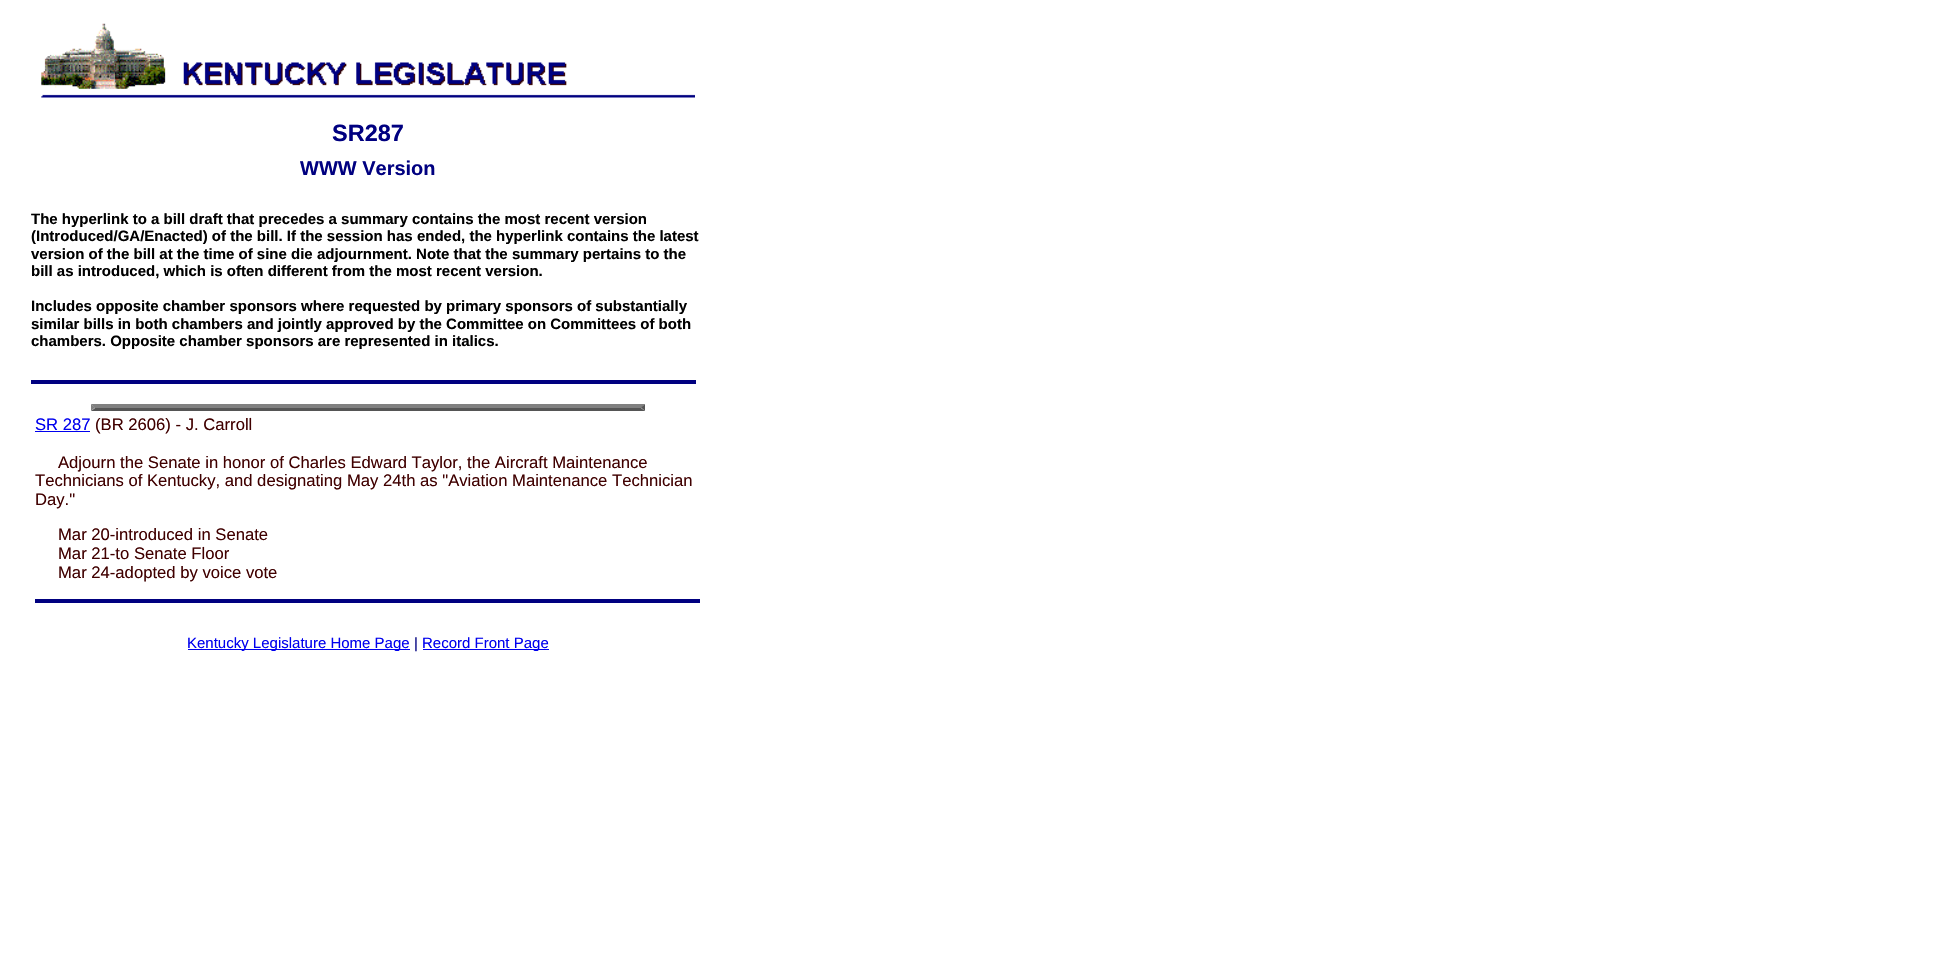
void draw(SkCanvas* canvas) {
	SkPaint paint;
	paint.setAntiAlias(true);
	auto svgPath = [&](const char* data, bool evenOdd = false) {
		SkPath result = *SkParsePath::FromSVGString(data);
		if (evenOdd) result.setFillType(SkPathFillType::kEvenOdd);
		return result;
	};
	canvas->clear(0xffffffff);
	canvas->drawImageRect(SkImages::DeferredFromEncodedData(SkData::MakeFromFileName("img1.png")), SkRect::MakeXYWH(41, 23, 654, 75), SkSamplingOptions());
	SkFont f1(fontMgr->matchFamilyStyle("Liberation Sans", SkFontStyle::Bold()), 23.5);
	f1.setSubpixel(true);
	paint.setColor(0xff000080);
	canvas->drawString("SR287", 332, 141, f1, paint);
	SkFont f2(fontMgr->matchFamilyStyle("Liberation Sans", SkFontStyle::Bold()), 20);
	f2.setSubpixel(true);
	canvas->drawString("WWW Version", 300, 175, f2, paint);
	SkFont f3(fontMgr->matchFamilyStyle("Liberation Sans", SkFontStyle::Bold()), 15);
	f3.setSubpixel(true);
	paint.setColor(0xff000000);
	canvas->drawString("The hyperlink to a bill draft that precedes a summary contains the most recent version", 31, 224, f3, paint);
	canvas->drawString("(Introduced/GA/Enacted) of the bill. If the session has ended, the hyperlink contains the latest", 31, 241, f3, paint);
	canvas->drawString("version of the bill at the time of sine die adjournment. Note that the summary pertains to the", 31, 259, f3, paint);
	canvas->drawString("bill as introduced, which is often different from the most recent version.", 31, 276, f3, paint);
	canvas->drawString("Includes opposite chamber sponsors where requested by primary sponsors of substantially", 31, 311, f3, paint);
	canvas->drawString("similar bills in both chambers and jointly approved by the Committee on Committees of both", 31, 329, f3, paint);
	canvas->drawString("chambers. Opposite chamber sponsors are represented in italics.", 31, 346, f3, paint);
	paint.setColor(0xff000080);
	canvas->drawRect(SkRect::MakeXYWH(31, 380, 665, 4), paint);
	paint.setColor(0xff808080);
	canvas->drawPath(svgPath("M91 404H645L641 408H95Z"), paint);
	paint.setColor(0xff555555);
	canvas->drawPath(svgPath("M645 404V411L641 407.5Z"), paint);
	canvas->drawPath(svgPath("M645 411H91L95 408H641Z"), paint);
	paint.setColor(0xff808080);
	canvas->drawPath(svgPath("M91 411V404L95 407.5Z"), paint);
	SkFont f4(fontMgr->matchFamilyStyle("Liberation Sans", SkFontStyle::Normal()), 16.65);
	f4.setSubpixel(true);
	paint.setColor(0xff0000ee);
	canvas->drawString("SR 287", 35, 430, f4, paint);
	canvas->drawRect(SkRect::MakeXYWH(35, 431, 55, 1), paint);
	paint.setColor(0xff400000);
	canvas->drawString("(BR 2606) - J. Carroll", 95, 430, f4, paint);
	canvas->drawString("Adjourn the Senate in honor of Charles Edward Taylor, the Aircraft Maintenance", 58, 468, f4, paint);
	canvas->drawString("Technicians of Kentucky, and designating May 24th as \"Aviation Maintenance Technician", 35, 486, f4, paint);
	canvas->drawString("Day.\"", 35, 505, f4, paint);
	canvas->drawString("Mar 20-introduced in Senate", 58, 540, f4, paint);
	canvas->drawString("Mar 21-to Senate Floor", 58, 559, f4, paint);
	canvas->drawString("Mar 24-adopted by voice vote", 58, 578, f4, paint);
	paint.setColor(0xff000080);
	canvas->drawRect(SkRect::MakeXYWH(35, 599, 665, 4), paint);
	paint.setColor(0xff0000ee);
	canvas->drawRect(SkRect::MakeXYWH(188, 649, 222, 1), paint);
	SkFont f5(fontMgr->matchFamilyStyle("Liberation Sans", SkFontStyle::Normal()), 15);
	f5.setSubpixel(true);
	canvas->drawString("Kentucky Legislature Home Page", 187, 648, f5, paint);
	paint.setColor(0xff000080);
	canvas->drawString("|", 414, 648, f5, paint);
	paint.setColor(0xff0000ee);
	canvas->drawRect(SkRect::MakeXYWH(423, 649, 126, 1), paint);
	canvas->drawString("Record Front Page", 422, 648, f5, paint);
}
